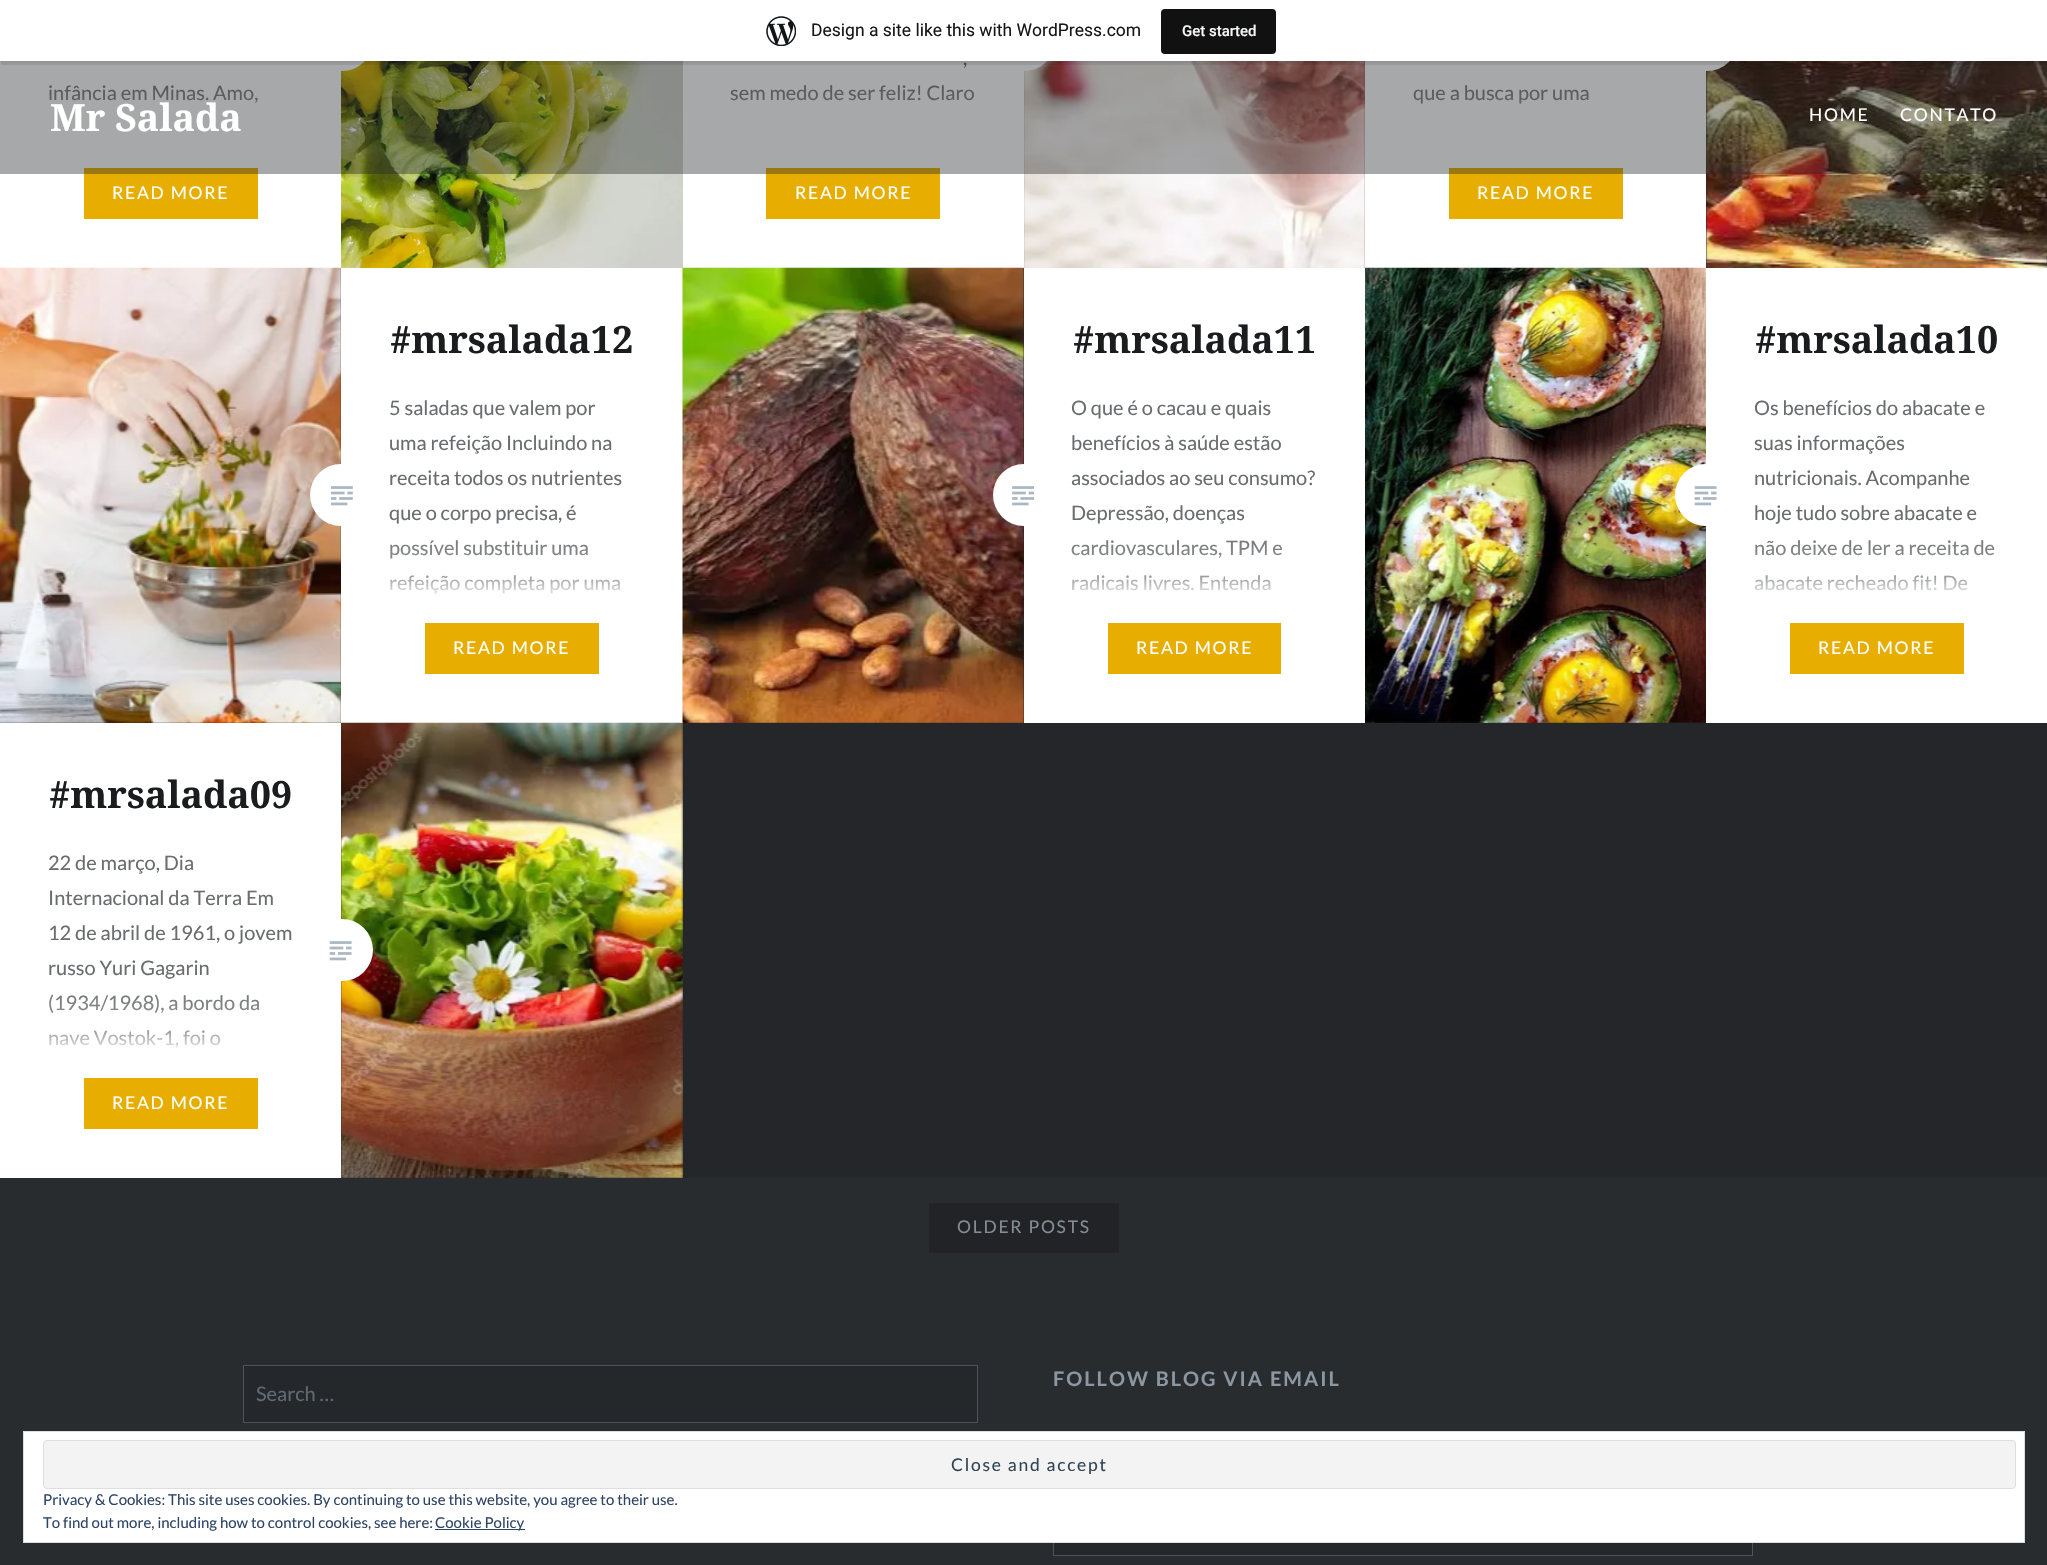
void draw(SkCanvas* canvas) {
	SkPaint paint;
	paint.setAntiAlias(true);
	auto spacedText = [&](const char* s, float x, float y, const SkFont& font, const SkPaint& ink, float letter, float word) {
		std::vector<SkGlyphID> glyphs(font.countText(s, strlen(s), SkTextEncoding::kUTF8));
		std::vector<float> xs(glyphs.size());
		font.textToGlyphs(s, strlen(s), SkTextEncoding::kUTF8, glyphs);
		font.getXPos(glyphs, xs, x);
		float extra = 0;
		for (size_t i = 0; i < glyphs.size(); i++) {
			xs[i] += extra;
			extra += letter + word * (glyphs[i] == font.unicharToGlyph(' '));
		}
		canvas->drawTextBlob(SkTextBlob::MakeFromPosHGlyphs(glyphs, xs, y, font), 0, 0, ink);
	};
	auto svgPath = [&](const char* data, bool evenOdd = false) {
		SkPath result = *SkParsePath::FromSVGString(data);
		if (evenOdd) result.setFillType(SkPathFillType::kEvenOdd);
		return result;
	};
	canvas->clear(0xff292c2f);
	paint.setColor(0xff242629);
	canvas->drawRect(SkRect::MakeXYWH(683, 61, 1364, 1117), paint);
	paint.setColor(0xffffffff);
	canvas->drawRect(SkRect::MakeXYWH(0, 61, 1024, 207), paint);
	canvas->drawImageRect(SkImages::DeferredFromEncodedData(SkData::MakeFromFileName("img2.png")), SkRect::MakeXYWH(341, 61, 342, 207), SkSamplingOptions());
	canvas->drawRoundRect(SkRect::MakeXYWH(310, 9, 63, 62), 31, 31, paint);
	canvas->drawImageRect(SkImages::DeferredFromEncodedData(SkData::MakeFromFileName("img3.png")), SkRect::MakeXYWH(1024, 61, 341, 207), SkSamplingOptions());
	canvas->drawCircle(1024, 40, 31, paint);
	canvas->drawRect(SkRect::MakeXYWH(1365, 61, 341, 207), paint);
	canvas->drawImageRect(SkImages::DeferredFromEncodedData(SkData::MakeFromFileName("img4.png")), SkRect::MakeXYWH(1706, 61, 341, 207), SkSamplingOptions());
	canvas->drawRoundRect(SkRect::MakeXYWH(1675, 9, 63, 62), 31, 31, paint);
	SkFont f1(fontMgr->matchFamilyStyle("Lato", SkFontStyle::Normal()), 20);
	f1.setSubpixel(true);
	paint.setColor(0xff6a6c6e);
	canvas->drawString("infância em Minas. Amo,", 48, 100, f1, paint);
	paint.setColor(0xffe7ae01);
	canvas->drawRect(SkRect::MakeXYWH(84, 168, 174, 51), paint);
	{
		const SkColor colors[] = {0x00ffffff, 0xffffffff};
		const float stops[] = {0, 1};
		const SkPoint ends[] = {{171, 74}, {171, 218}};
		paint.setShader(SkGradientShader::MakeLinear(ends, colors, stops, 2, SkTileMode::kClamp));
		paint.setAlpha(255);
	}
	canvas->drawRect(SkRect::MakeXYWH(49, 85, 209, 18), paint);
	paint.setShader(nullptr);
	paint.setColor(0xff6a6c6e);
	canvas->drawString(",", 963, 65, f1, paint);
	canvas->drawString("sem medo de ser feliz! Claro", 730, 100, f1, paint);
	paint.setColor(0xffe7ae01);
	canvas->drawRect(SkRect::MakeXYWH(766, 168, 174, 51), paint);
	{
		const SkColor colors[] = {0x00ffffff, 0xffffffff};
		const float stops[] = {0, 1};
		const SkPoint ends[] = {{853, 74}, {853, 218}};
		paint.setShader(SkGradientShader::MakeLinear(ends, colors, stops, 2, SkTileMode::kClamp));
		paint.setAlpha(255);
	}
	canvas->drawRect(SkRect::MakeXYWH(731, 85, 243, 16), paint);
	paint.setShader(nullptr);
	paint.setColor(0xff6a6c6e);
	canvas->drawString("que a busca por uma", 1413, 100, f1, paint);
	paint.setColor(0xffe7ae01);
	canvas->drawRect(SkRect::MakeXYWH(1449, 168, 174, 51), paint);
	{
		const SkColor colors[] = {0x00ffffff, 0xffffffff};
		const float stops[] = {0, 1};
		const SkPoint ends[] = {{1536, 74}, {1536, 218}};
		paint.setShader(SkGradientShader::MakeLinear(ends, colors, stops, 2, SkTileMode::kClamp));
		paint.setAlpha(255);
	}
	canvas->drawRect(SkRect::MakeXYWH(1413, 85, 176, 19), paint);
	paint.setShader(nullptr);
	paint.setColor(0x66242629);
	canvas->drawRect(SkRect::MakeXYWH(0, 61, 2047, 113), paint);
	paint.setColor(0x0d000000);
	paint.setMaskFilter(SkMaskFilter::MakeBlur(kNormal_SkBlurStyle, 1));
	canvas->drawRect(SkRect::MakeXYWH(0, 1, 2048, 62), paint);
	paint.setMaskFilter(nullptr);
	paint.setColor(0x14000000);
	canvas->drawPath(svgPath("M1 61V65H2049V4H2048V61Z"), paint);
	paint.setColor(0xffffffff);
	canvas->drawRect(SkRect::MakeXYWH(0, 0, 2047, 61), paint);
	canvas->drawImageRect(SkImages::DeferredFromEncodedData(SkData::MakeFromFileName("img1.png")), SkRect::MakeXYWH(766, 16, 30, 30), SkSamplingOptions());
	SkFont f2(fontMgr->matchFamilyStyle("Roboto", SkFontStyle::Normal()), 17.5);
	f2.setSubpixel(true);
	paint.setColor(0xff171717);
	canvas->drawString("Design a site like this with WordPress.com", 811, 36, f2, paint);
	paint.setColor(0xff111111);
	canvas->drawRoundRect(SkRect::MakeXYWH(1161, 9, 115, 45), 4, 4, paint);
	SkFont f3(fontMgr->matchFamilyStyle("Roboto", SkFontStyle(500, SkFontStyle::kNormal_Width, SkFontStyle::kUpright_Slant)), 15);
	f3.setSubpixel(true);
	paint.setColor(0xfff6f7f7);
	canvas->drawString("Get started", 1182, 36, f3, paint);
	SkFont f4(fontMgr->matchFamilyStyle("Lato", SkFontStyle::Normal()), 17.5);
	f4.setSubpixel(true);
	paint.setColor(0xffffffff);
	spacedText("READ MORE", 112, 199, f4, paint, 1.75, 0);
	spacedText("READ MORE", 795, 199, f4, paint, 1.75, 0);
	spacedText("READ MORE", 1477, 199, f4, paint, 1.75, 0);
	paint.setColor(0xff242629);
	canvas->drawRect(SkRect::MakeXYWH(0, 268, 341, 455), paint);
	canvas->drawImageRect(SkImages::DeferredFromEncodedData(SkData::MakeFromFileName("img5.png")), SkRect::MakeXYWH(0, 267, 342, 456), SkSamplingOptions());
	paint.setColor(0xffffffff);
	canvas->drawRect(SkRect::MakeXYWH(341, 268, 342, 455), paint);
	canvas->drawRoundRect(SkRect::MakeXYWH(310, 464, 63, 62), 31, 31, paint);
	SkFont f5(fontMgr->matchFamilyStyle("Noto Serif", SkFontStyle::Bold()), 37.5);
	f5.setSubpixel(true);
	paint.setColor(0xff1a1c1e);
	canvas->drawString("#mrsalada12", 390, 353, f5, paint);
	paint.setColor(0xff6a6c6e);
	canvas->drawString("5 saladas que valem por", 389, 415, f1, paint);
	canvas->drawString("uma refeição Incluindo na", 389, 450, f1, paint);
	canvas->drawString("receita todos os nutrientes", 389, 485, f1, paint);
	canvas->drawString("que o corpo precisa, é", 389, 520, f1, paint);
	canvas->drawString("possível substituir uma", 389, 555, f1, paint);
	canvas->drawString("refeição completa por uma", 389, 590, f1, paint);
	{
		const SkColor colors[] = {0x00ffffff, 0xffffffff};
		const float stops[] = {0, 1};
		const SkPoint ends[] = {{512, 529}, {512, 673}};
		paint.setShader(SkGradientShader::MakeLinear(ends, colors, stops, 2, SkTileMode::kClamp));
		paint.setAlpha(255);
	}
	canvas->drawRect(SkRect::MakeXYWH(390, 540, 230, 54), paint);
	{
		const SkColor colors[] = {0x00ffffff, 0xffffffff};
		const float stops[] = {0, 1};
		const SkPoint ends[] = {{512, 577}, {512, 604}};
		paint.setShader(SkGradientShader::MakeLinear(ends, colors, stops, 2, SkTileMode::kClamp));
		paint.setAlpha(255);
	}
	canvas->drawRect(SkRect::MakeXYWH(390, 578, 230, 16), paint);
	paint.setShader(nullptr);
	paint.setColor(0xffe7ae01);
	canvas->drawRect(SkRect::MakeXYWH(425, 623, 174, 51), paint);
	paint.setColor(0xffffffff);
	spacedText("READ MORE", 453, 654, f4, paint, 1.75, 0);
	canvas->drawImageRect(SkImages::DeferredFromEncodedData(SkData::MakeFromFileName("img6.png")), SkRect::MakeXYWH(330, 486, 23, 20), SkSamplingOptions());
	canvas->drawRect(SkRect::MakeXYWH(1024, 268, 341, 455), paint);
	canvas->drawImageRect(SkImages::DeferredFromEncodedData(SkData::MakeFromFileName("img7.png")), SkRect::MakeXYWH(682, 267, 342, 456), SkSamplingOptions());
	canvas->drawCircle(1024, 495, 31, paint);
	paint.setColor(0xff1a1c1e);
	canvas->drawString("#mrsalada11", 1073, 353, f5, paint);
	paint.setColor(0xff6a6c6e);
	canvas->drawString("O que é o cacau e quais", 1071, 415, f1, paint);
	canvas->drawString("benefícios à saúde estão", 1071, 450, f1, paint);
	canvas->drawString("associados ao seu consumo?", 1071, 485, f1, paint);
	canvas->drawString("Depressão, doenças", 1071, 520, f1, paint);
	canvas->drawString("cardiovasculares, TPM e", 1071, 555, f1, paint);
	canvas->drawString("radicais livres. Entenda", 1071, 590, f1, paint);
	{
		const SkColor colors[] = {0x00ffffff, 0xffffffff};
		const float stops[] = {0, 1};
		const SkPoint ends[] = {{1194, 529}, {1194, 673}};
		paint.setShader(SkGradientShader::MakeLinear(ends, colors, stops, 2, SkTileMode::kClamp));
		paint.setAlpha(255);
	}
	canvas->drawRect(SkRect::MakeXYWH(1072, 540, 211, 51), paint);
	{
		const SkColor colors[] = {0x00ffffff, 0xffffffff};
		const float stops[] = {0, 1};
		const SkPoint ends[] = {{1194, 577}, {1194, 604}};
		paint.setShader(SkGradientShader::MakeLinear(ends, colors, stops, 2, SkTileMode::kClamp));
		paint.setAlpha(255);
	}
	canvas->drawRect(SkRect::MakeXYWH(1073, 578, 198, 13), paint);
	paint.setShader(nullptr);
	paint.setColor(0xffe7ae01);
	canvas->drawRect(SkRect::MakeXYWH(1108, 623, 173, 51), paint);
	paint.setColor(0xffffffff);
	spacedText("READ MORE", 1136, 654, f4, paint, 1.75, 0);
	canvas->drawImageRect(SkImages::DeferredFromEncodedData(SkData::MakeFromFileName("img8.png")), SkRect::MakeXYWH(1012, 486, 23, 20), SkSamplingOptions());
	canvas->drawImageRect(SkImages::DeferredFromEncodedData(SkData::MakeFromFileName("img9.png")), SkRect::MakeXYWH(1365, 267, 342, 456), SkSamplingOptions());
	canvas->drawRect(SkRect::MakeXYWH(1706, 268, 341, 455), paint);
	canvas->drawRoundRect(SkRect::MakeXYWH(1675, 464, 63, 62), 31, 31, paint);
	paint.setColor(0xff1a1c1e);
	canvas->drawString("#mrsalada10", 1755, 353, f5, paint);
	paint.setColor(0xff6a6c6e);
	canvas->drawString("Os benefícios do abacate e", 1754, 415, f1, paint);
	canvas->drawString("suas informações", 1754, 450, f1, paint);
	canvas->drawString("nutricionais. Acompanhe", 1754, 485, f1, paint);
	canvas->drawString("hoje tudo sobre abacate e", 1754, 520, f1, paint);
	canvas->drawString("não deixe de ler a receita de", 1754, 555, f1, paint);
	canvas->drawString("abacate recheado fit! De", 1754, 590, f1, paint);
	{
		const SkColor colors[] = {0x00ffffff, 0xffffffff};
		const float stops[] = {0, 1};
		const SkPoint ends[] = {{1877, 529}, {1877, 673}};
		paint.setShader(SkGradientShader::MakeLinear(ends, colors, stops, 2, SkTileMode::kClamp));
		paint.setAlpha(255);
	}
	canvas->drawRect(SkRect::MakeXYWH(1754, 540, 241, 51), paint);
	{
		const SkColor colors[] = {0x00ffffff, 0xffffffff};
		const float stops[] = {0, 1};
		const SkPoint ends[] = {{1877, 577}, {1877, 604}};
		paint.setShader(SkGradientShader::MakeLinear(ends, colors, stops, 2, SkTileMode::kClamp));
		paint.setAlpha(255);
	}
	canvas->drawRect(SkRect::MakeXYWH(1755, 578, 213, 13), paint);
	paint.setShader(nullptr);
	paint.setColor(0xffe7ae01);
	canvas->drawRect(SkRect::MakeXYWH(1790, 623, 174, 51), paint);
	paint.setColor(0xffffffff);
	spacedText("READ MORE", 1818, 654, f4, paint, 1.75, 0);
	canvas->drawImageRect(SkImages::DeferredFromEncodedData(SkData::MakeFromFileName("img10.png")), SkRect::MakeXYWH(1694, 486, 23, 20), SkSamplingOptions());
	canvas->drawRect(SkRect::MakeXYWH(0, 723, 341, 455), paint);
	paint.setColor(0xff1a1c1e);
	canvas->drawString("#mrsalada09", 49, 808, f5, paint);
	paint.setColor(0xff6a6c6e);
	canvas->drawString("22 de março, Dia", 48, 870, f1, paint);
	canvas->drawString("Internacional da Terra Em", 48, 905, f1, paint);
	canvas->drawString("12 de abril de 1961, o jovem", 48, 940, f1, paint);
	canvas->drawString("russo Yuri Gagarin", 48, 975, f1, paint);
	canvas->drawString("(1934/1968), a bordo da", 48, 1010, f1, paint);
	canvas->drawString("nave Vostok-1, foi o", 48, 1045, f1, paint);
	{
		const SkColor colors[] = {0x00ffffff, 0xffffffff};
		const float stops[] = {0, 1};
		const SkPoint ends[] = {{171, 984}, {171, 1128}};
		paint.setShader(SkGradientShader::MakeLinear(ends, colors, stops, 2, SkTileMode::kClamp));
		paint.setAlpha(255);
	}
	canvas->drawRect(SkRect::MakeXYWH(49, 994, 210, 54), paint);
	{
		const SkColor colors[] = {0x00ffffff, 0xffffffff};
		const float stops[] = {0, 1};
		const SkPoint ends[] = {{171, 1032}, {171, 1059}};
		paint.setShader(SkGradientShader::MakeLinear(ends, colors, stops, 2, SkTileMode::kClamp));
		paint.setAlpha(255);
	}
	canvas->drawRect(SkRect::MakeXYWH(49, 1033, 171, 15), paint);
	paint.setShader(nullptr);
	paint.setColor(0xffe7ae01);
	canvas->drawRect(SkRect::MakeXYWH(84, 1078, 174, 51), paint);
	paint.setColor(0xffffffff);
	spacedText("READ MORE", 112, 1109, f4, paint, 1.75, 0);
	paint.setColor(0xff242629);
	canvas->drawRect(SkRect::MakeXYWH(341, 723, 342, 455), paint);
	canvas->drawImageRect(SkImages::DeferredFromEncodedData(SkData::MakeFromFileName("img11.png")), SkRect::MakeXYWH(341, 722, 342, 456), SkSamplingOptions());
	paint.setColor(0xffffffff);
	canvas->drawRoundRect(SkRect::MakeXYWH(310, 919, 63, 62), 31, 31, paint);
	canvas->drawImageRect(SkImages::DeferredFromEncodedData(SkData::MakeFromFileName("img10.png")), SkRect::MakeXYWH(329, 941, 23, 20), SkSamplingOptions());
	paint.setColor(0xff212326);
	canvas->drawRect(SkRect::MakeXYWH(929, 1203, 190, 50), paint);
	paint.setColor(0xff858d95);
	spacedText("OLDER POSTS", 957, 1233, f4, paint, 1.75, 0);
	SkFont f6(fontMgr->matchFamilyStyle("Lato", SkFontStyle::Bold()), 20);
	f6.setSubpixel(true);
	paint.setColor(0xff8c97a2);
	spacedText("FOLLOW BLOG VIA EMAIL", 1053, 1386, f6, paint, 2, 0);
	paint.setColor(0xff25282a);
	canvas->drawRect(SkRect::MakeXYWH(1054, 1543, 698, 12), paint);
	paint.setStroke(true);
	paint.setStrokeWidth(1);
	paint.setColor(0xff4d545b);
	canvas->drawRect(SkRect::MakeXYWH(1053.5, 1521.5, 699, 34), paint);
	paint.setStroke(false);
	paint.setColor(0xff25282a);
	canvas->drawRect(SkRect::MakeXYWH(243.5, 1365.5, 734, 57), paint);
	paint.setStroke(true);
	paint.setColor(0xff4d545b);
	canvas->drawRect(SkRect::MakeXYWH(243.5, 1365.5, 734, 57), paint);
	paint.setStroke(false);
	paint.setColor(0xff616a74);
	canvas->drawString("Search …", 256, 1401, f1, paint);
	paint.setColor(0xffffffff);
	canvas->drawString("Mr Salada", 50, 131, f5, paint);
	spacedText("HOME", 1809, 121, f4, paint, 1.75, 0);
	spacedText("CONTATO", 1900, 121, f4, paint, 1.75, 0);
	canvas->drawRect(SkRect::MakeXYWH(23.5, 1431.5, 2001, 111), paint);
	paint.setStroke(true);
	paint.setColor(0xffdedede);
	canvas->drawRect(SkRect::MakeXYWH(23.5, 1431.5, 2001, 111), paint);
	paint.setStroke(false);
	paint.setColor(0xfff3f3f3);
	canvas->drawRoundRect(SkRect::MakeXYWH(43.5, 1440.5, 1972, 48), 3.5, 3.5, paint);
	paint.setStroke(true);
	paint.setColor(0xffdedede);
	canvas->drawRoundRect(SkRect::MakeXYWH(43.5, 1440.5, 1972, 48), 3.5, 3.5, paint);
	paint.setStroke(false);
	paint.setColor(0xff2e4453);
	spacedText("Close and accept", 951, 1471, f4, paint, 1.75, 0);
	SkFont f7(fontMgr->matchFamilyStyle("Lato", SkFontStyle::Normal()), 15);
	f7.setSubpixel(true);
	paint.setColor(0xff2e4467);
	canvas->drawString("Privacy & Cookies: This site uses cookies. By continuing to use this website, you agree to their use.", 43, 1505, f7, paint);
	canvas->drawString("To find out more, including how to control cookies, see here:", 43, 1528, f7, paint);
	canvas->drawRect(SkRect::MakeXYWH(435, 1529, 90, 1), paint);
	canvas->drawString("Cookie Policy", 435, 1528, f7, paint);
}
